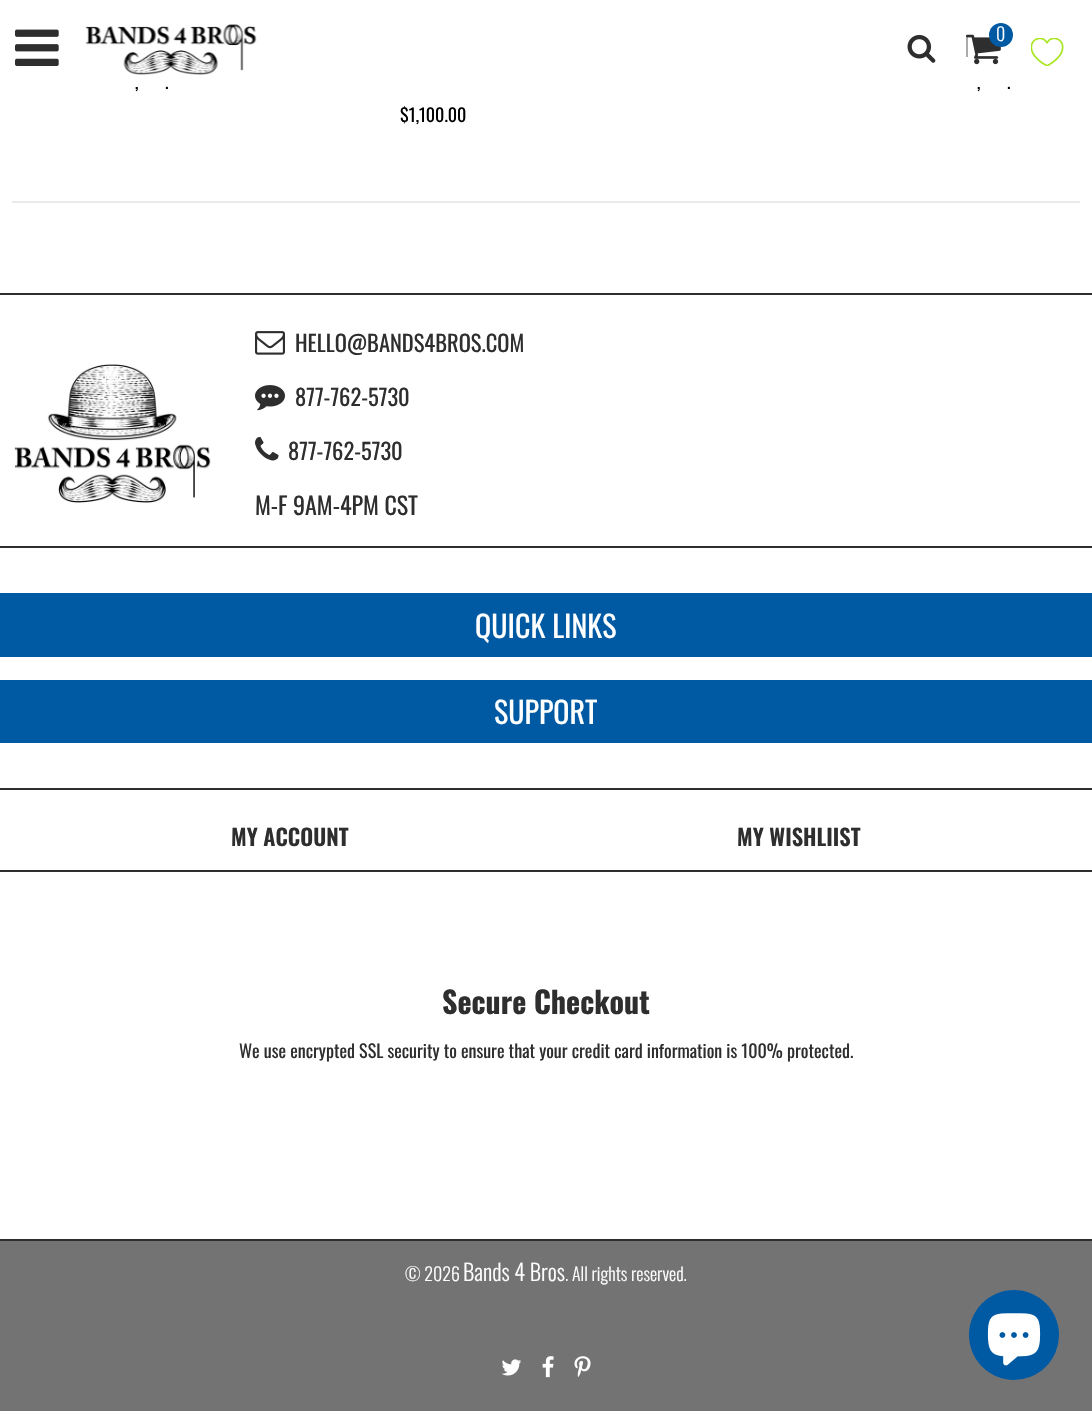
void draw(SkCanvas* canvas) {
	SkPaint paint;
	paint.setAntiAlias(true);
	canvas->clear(0xffffffff);
	canvas->drawImageRect(SkImages::DeferredFromEncodedData(SkData::MakeFromFileName("img1.png")), SkRect::MakeXYWH(15, 29, 44, 37), SkSamplingOptions());
	canvas->drawImageRect(SkImages::DeferredFromEncodedData(SkData::MakeFromFileName("img2.png")), SkRect::MakeXYWH(85, 24, 172, 51), SkSamplingOptions());
	canvas->drawImageRect(SkImages::DeferredFromEncodedData(SkData::MakeFromFileName("img3.png")), SkRect::MakeXYWH(907, 34, 29, 29), SkSamplingOptions());
	paint.setColor(0xffababab);
	canvas->drawRect(SkRect::MakeXYWH(966, 35, 2, 22), paint);
	canvas->drawImageRect(SkImages::DeferredFromEncodedData(SkData::MakeFromFileName("img4.png")), SkRect::MakeXYWH(966, 34, 35, 31), SkSamplingOptions());
	paint.setColor(0xff005aa3);
	canvas->drawCircle(1001, 35, 12, paint);
	SkFont f1(fontMgr->matchFamilyStyle("Oswald", SkFontStyle(300, SkFontStyle::kNormal_Width, SkFontStyle::kUpright_Slant)), 18);
	f1.setSubpixel(true);
	paint.setColor(0xffffffff);
	canvas->drawString("0", 996, 41, f1, paint);
	canvas->drawImageRect(SkImages::DeferredFromEncodedData(SkData::MakeFromFileName("img5.png")), SkRect::MakeXYWH(1031, 38, 33, 28), SkSamplingOptions());
	paint.setColor(0xffebebeb);
	canvas->drawRect(SkRect::MakeXYWH(12, 201, 1068, 2), paint);
	SkFont f2(fontMgr->matchFamilyStyle("Oswald", SkFontStyle::Normal()), 18);
	f2.setSubpixel(true);
	paint.setColor(0xff000000);
	canvas->drawString(",", 135, 89, f2, paint);
	canvas->drawString(".", 165, 89, f2, paint);
	canvas->drawString(",", 977, 89, f2, paint);
	canvas->drawString(".", 1007, 89, f2, paint);
	canvas->drawString("$1,100.00", 400, 122, f2, paint);
	paint.setColor(0xff2e2e2e);
	canvas->drawRect(SkRect::MakeXYWH(0, 293, 1092, 2), paint);
	canvas->drawRect(SkRect::MakeXYWH(0, 546, 1092, 2), paint);
	canvas->drawImageRect(SkImages::DeferredFromEncodedData(SkData::MakeFromFileName("img6.png")), SkRect::MakeXYWH(14, 364, 197, 139), SkSamplingOptions());
	canvas->drawImageRect(SkImages::DeferredFromEncodedData(SkData::MakeFromFileName("img7.png")), SkRect::MakeXYWH(255, 331, 30, 24), SkSamplingOptions());
	SkFont f3(fontMgr->matchFamilyStyle("Oswald", SkFontStyle::Normal()), 22.5);
	f3.setSubpixel(true);
	canvas->drawString("HELLO@BANDS4BROS.COM", 295, 352, f3, paint);
	canvas->drawImageRect(SkImages::DeferredFromEncodedData(SkData::MakeFromFileName("img8.png")), SkRect::MakeXYWH(255, 385, 30, 26), SkSamplingOptions());
	canvas->drawString("877-762-5730", 295, 406, f3, paint);
	canvas->drawImageRect(SkImages::DeferredFromEncodedData(SkData::MakeFromFileName("img9.png")), SkRect::MakeXYWH(255, 437, 24, 24), SkSamplingOptions());
	canvas->drawString("877-762-5730", 288, 460, f3, paint);
	SkFont f4(fontMgr->matchFamilyStyle("Oswald", SkFontStyle::Normal()), 24);
	f4.setSubpixel(true);
	canvas->drawString("M-F 9AM-4PM CST", 255, 515, f4, paint);
	canvas->drawRect(SkRect::MakeXYWH(0, 788, 1092, 2), paint);
	paint.setColor(0xff005aa3);
	canvas->drawRect(SkRect::MakeXYWH(0, 593, 1092, 64), paint);
	SkFont f5(fontMgr->matchFamilyStyle("Oswald", SkFontStyle::Normal()), 30);
	f5.setSubpixel(true);
	paint.setColor(0xffffffff);
	canvas->drawString("QUICK LINKS", 475, 638, f5, paint);
	paint.setColor(0xff005aa3);
	canvas->drawRect(SkRect::MakeXYWH(0, 680, 1092, 63), paint);
	paint.setColor(0xffffffff);
	canvas->drawString("SUPPORT", 494, 724, f5, paint);
	paint.setColor(0xff2e2e2e);
	canvas->drawRect(SkRect::MakeXYWH(0, 870, 1092, 2), paint);
	SkFont f6(fontMgr->matchFamilyStyle("Oswald", SkFontStyle(600, SkFontStyle::kNormal_Width, SkFontStyle::kUpright_Slant)), 22.5);
	f6.setSubpixel(true);
	canvas->drawString("MY ACCOUNT", 231, 846, f6, paint);
	canvas->drawString("MY WISHLIIST", 737, 846, f6, paint);
	canvas->drawRect(SkRect::MakeXYWH(0, 1239, 1092, 2), paint);
	SkFont f7(fontMgr->matchFamilyStyle("Oswald", SkFontStyle::Bold()), 30);
	f7.setSubpixel(true);
	canvas->drawString("Secure Checkout", 442, 1014, f7, paint);
	canvas->drawString("We use encrypted SSL security to ensure that your credit card information is 100% protected.", 239, 1058, f2, paint);
	paint.setColor(0xff737373);
	canvas->drawRect(SkRect::MakeXYWH(0, 1241, 1092, 170), paint);
	paint.setColor(0xffffffff);
	canvas->drawString("© 2026", 405, 1281, f1, paint);
	SkFont f8(fontMgr->matchFamilyStyle("Oswald", SkFontStyle(300, SkFontStyle::kNormal_Width, SkFontStyle::kUpright_Slant)), 22.5);
	f8.setSubpixel(true);
	canvas->drawString("Bands 4 Bros", 463, 1281, f8, paint);
	canvas->drawString(". All rights reserved.", 565, 1281, f1, paint);
	canvas->drawImageRect(SkImages::DeferredFromEncodedData(SkData::MakeFromFileName("img10.png")), SkRect::MakeXYWH(501, 1359, 21, 17), SkSamplingOptions());
	canvas->drawImageRect(SkImages::DeferredFromEncodedData(SkData::MakeFromFileName("img11.png")), SkRect::MakeXYWH(542, 1356, 12, 22), SkSamplingOptions());
	canvas->drawImageRect(SkImages::DeferredFromEncodedData(SkData::MakeFromFileName("img12.png")), SkRect::MakeXYWH(574, 1356, 17, 21), SkSamplingOptions());
	paint.setColor(0xff005aa3);
	canvas->drawCircle(1014, 1335, 45, paint);
	canvas->drawImageRect(SkImages::DeferredFromEncodedData(SkData::MakeFromFileName("img13.png")), SkRect::MakeXYWH(987, 1313, 54, 53), SkSamplingOptions());
}
